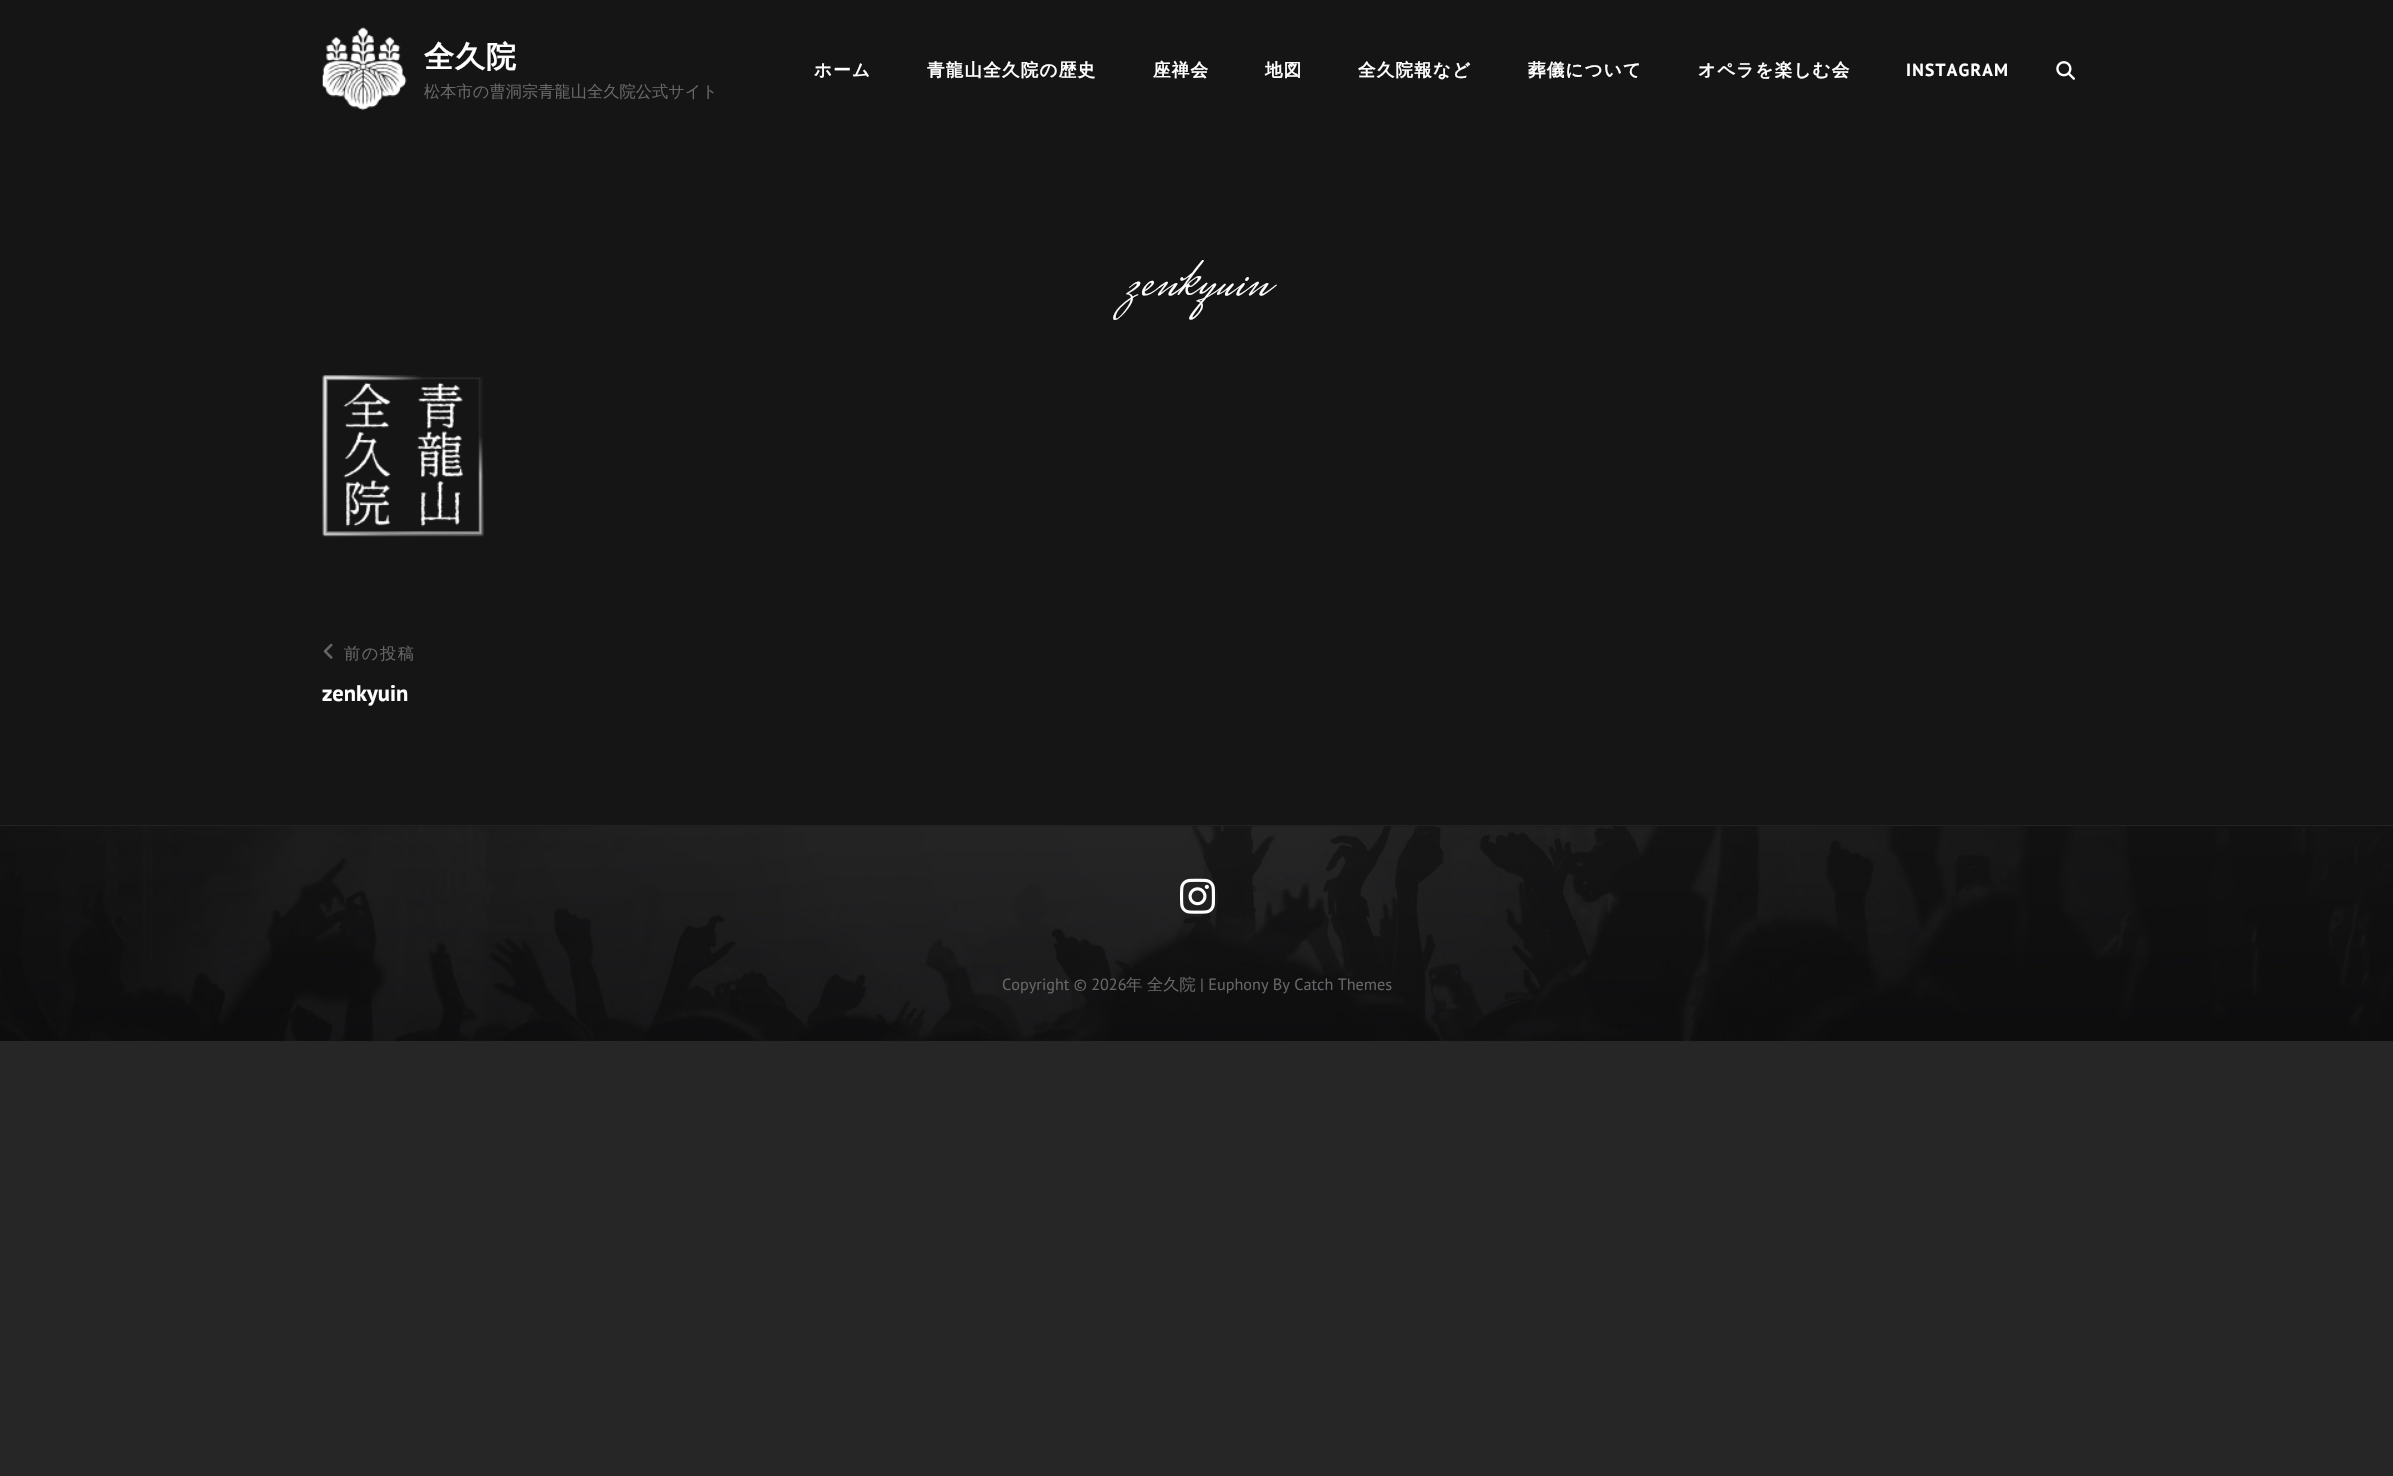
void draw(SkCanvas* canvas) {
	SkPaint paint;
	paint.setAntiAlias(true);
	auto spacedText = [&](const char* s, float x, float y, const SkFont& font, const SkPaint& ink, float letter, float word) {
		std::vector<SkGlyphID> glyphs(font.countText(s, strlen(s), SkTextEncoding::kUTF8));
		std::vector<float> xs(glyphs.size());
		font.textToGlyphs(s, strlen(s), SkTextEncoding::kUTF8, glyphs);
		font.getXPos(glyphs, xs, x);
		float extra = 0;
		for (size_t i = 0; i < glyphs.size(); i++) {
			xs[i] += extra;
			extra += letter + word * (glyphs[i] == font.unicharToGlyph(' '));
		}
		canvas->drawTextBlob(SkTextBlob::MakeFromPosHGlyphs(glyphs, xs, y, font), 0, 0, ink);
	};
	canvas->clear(0xff262626);
	paint.setColor(0xff151515);
	canvas->drawRect(SkRect::MakeXYWH(0, 0, 2393, 827), paint);
	canvas->drawImageRect(SkImages::DeferredFromEncodedData(SkData::MakeFromFileName("img1.png")), SkRect::MakeXYWH(322, 27, 85, 84), SkSamplingOptions());
	SkFont f1(fontMgr->matchFamilyStyle("WenQuanYi Zen Hei", SkFontStyle::Bold()), 30);
	f1.setSubpixel(true);
	paint.setColor(0xffffffff);
	spacedText("全久院", 424, 67, f1, paint, 1, 0);
	SkFont f2(fontMgr->matchFamilyStyle("WenQuanYi Zen Hei", SkFontStyle(500, SkFontStyle::kNormal_Width, SkFontStyle::kUpright_Slant)), 16.25);
	f2.setSubpixel(true);
	paint.setColor(0xff666666);
	canvas->drawString("松本市の曹洞宗青龍山全久院公式サイト", 424, 97, f2, paint);
	SkFont f3(fontMgr->matchFamilyStyle("WenQuanYi Zen Hei", SkFontStyle::Bold()), 17.5);
	f3.setSubpixel(true);
	paint.setColor(0xffffffff);
	spacedText("ホーム", 814, 76, f3, paint, 1.25, 0);
	spacedText("青龍山全久院の歴史", 927, 76, f3, paint, 1.25, 0);
	spacedText("座禅会", 1153, 76, f3, paint, 1.25, 0);
	spacedText("地図", 1265, 76, f3, paint, 1.25, 0);
	spacedText("全久院報など", 1358, 76, f3, paint, 1.25, 0);
	spacedText("葬儀について", 1528, 76, f3, paint, 1.25, 0);
	spacedText("オペラを楽しむ会", 1698, 76, f3, paint, 1.25, 0);
	SkFont f4(fontMgr->matchFamilyStyle("PT Sans", SkFontStyle::Bold()), 17.5);
	f4.setSubpixel(true);
	spacedText("INSTAGRAM", 1906, 76, f4, paint, 1.25, 0);
	canvas->drawImageRect(SkImages::DeferredFromEncodedData(SkData::MakeFromFileName("img2.png")), SkRect::MakeXYWH(2056, 61, 19, 19), SkSamplingOptions());
	paint.setColor(0xff222222);
	canvas->drawRect(SkRect::MakeXYWH(0, 825, 2393, 1), paint);
	SkFont f5(fontMgr->matchFamilyStyle("Mrs Saint Delafield", SkFontStyle::Normal()), 60);
	f5.setSubpixel(true);
	paint.setColor(0xffffffff);
	canvas->drawString("zenkyuin", 1125, 295, f5, paint);
	canvas->drawImageRect(SkImages::DeferredFromEncodedData(SkData::MakeFromFileName("img3.png")), SkRect::MakeXYWH(322, 375, 162, 162), SkSamplingOptions());
	canvas->drawImageRect(SkImages::DeferredFromEncodedData(SkData::MakeFromFileName("img4.png")), SkRect::MakeXYWH(323, 643, 10, 16), SkSamplingOptions());
	paint.setColor(0xff666666);
	spacedText("前の投稿", 344, 659, f2, paint, 1.5, 0);
	SkFont f6(fontMgr->matchFamilyStyle("PT Sans", SkFontStyle::Bold()), 22.5);
	f6.setSubpixel(true);
	paint.setColor(0xffffffff);
	canvas->drawString("zenkyuin", 322, 701, f6, paint);
	canvas->drawImageRect(SkImages::DeferredFromEncodedData(SkData::MakeFromFileName("img5.png")), SkRect::MakeXYWH(0, 826, 2393, 215), SkSamplingOptions());
	canvas->drawImageRect(SkImages::DeferredFromEncodedData(SkData::MakeFromFileName("img6.png")), SkRect::MakeXYWH(1180, 878, 35, 36), SkSamplingOptions());
	SkFont f7(fontMgr->matchFamilyStyle("PT Sans", SkFontStyle::Normal()), 16.25);
	f7.setSubpixel(true);
	paint.setColor(0xff666666);
	canvas->drawString("Copyright © 2026", 1002, 990, f7, paint);
	canvas->drawString("年", 1126, 990, f2, paint);
	canvas->drawString("全久院", 1147, 990, f2, paint);
	canvas->drawString("| Euphony By Catch Themes", 1200, 990, f7, paint);
}
